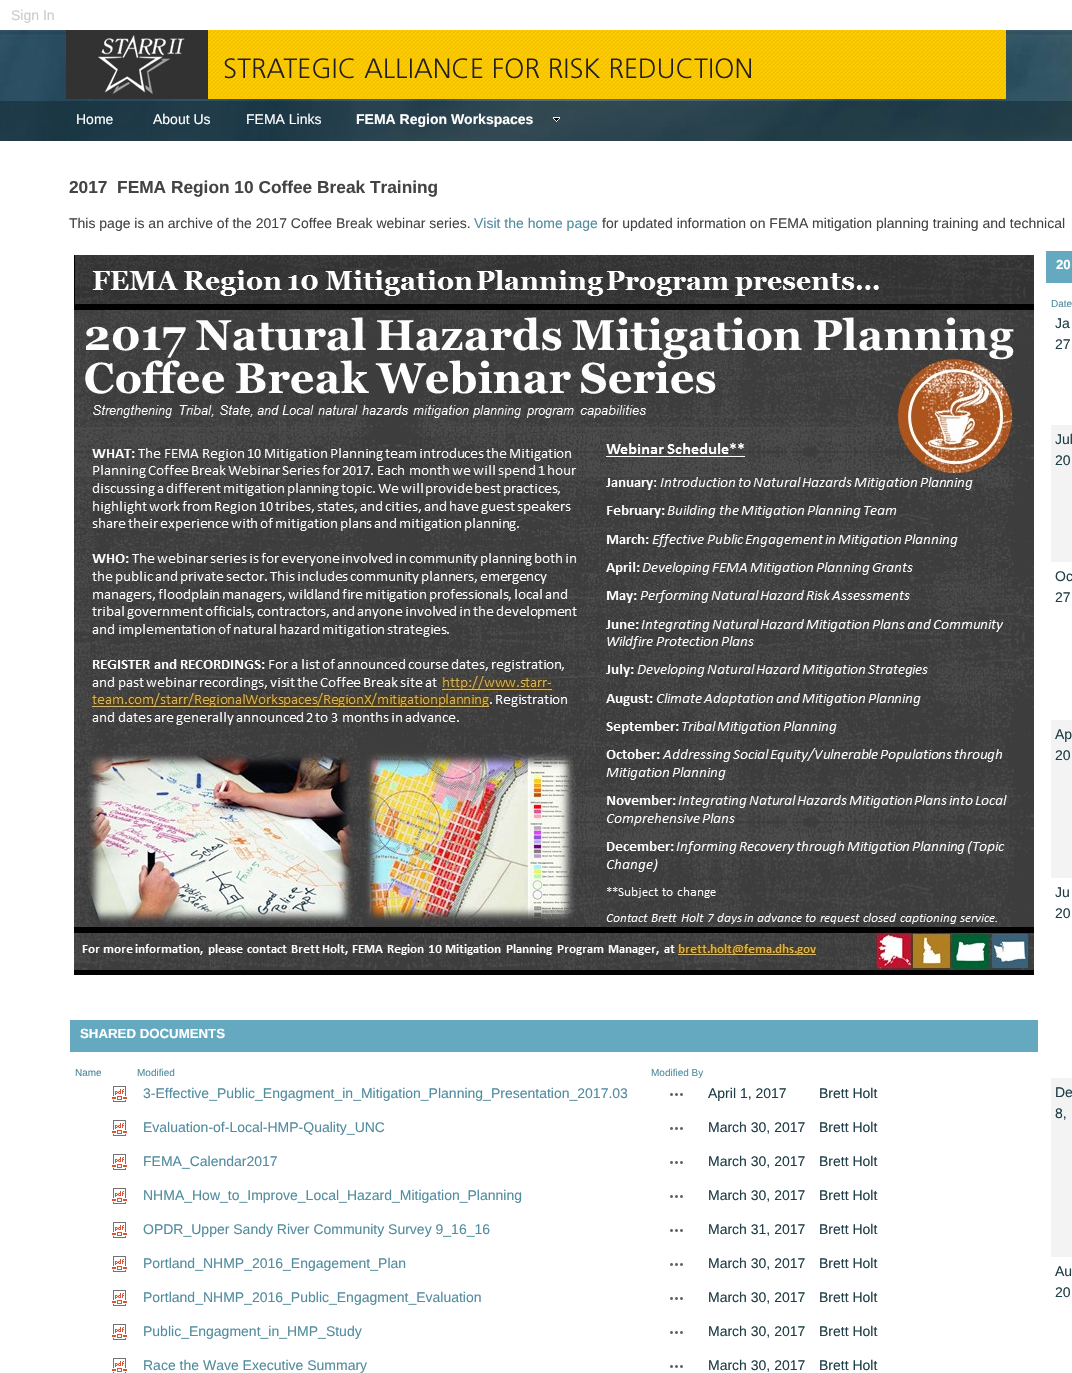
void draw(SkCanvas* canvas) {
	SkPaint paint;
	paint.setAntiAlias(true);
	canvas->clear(0xffffffff);
	SkFont f1(fontMgr->matchFamilyStyle("Liberation Sans", SkFontStyle::Normal()), 14);
	f1.setSubpixel(true);
	paint.setColor(0xffcccccc);
	canvas->drawString("Sign In", 11, 20, f1, paint);
	canvas->drawImageRect(SkImages::DeferredFromEncodedData(SkData::MakeFromFileName("img1.png")), SkRect::MakeXYWH(0, 30, 1072, 111), SkSamplingOptions());
	canvas->drawImageRect(SkImages::DeferredFromEncodedData(SkData::MakeFromFileName("img2.png")), SkRect::MakeXYWH(66, 30, 940, 69), SkSamplingOptions());
	paint.setColor(0x8010242c);
	canvas->drawRect(SkRect::MakeXYWH(0, 101, 1072, 40), paint);
	paint.setColor(0xffffffff);
	canvas->drawString("Home", 76, 124, f1, paint);
	canvas->drawString("About Us", 153, 124, f1, paint);
	canvas->drawString("FEMA Links", 246, 124, f1, paint);
	SkFont f2(fontMgr->matchFamilyStyle("Liberation Sans", SkFontStyle::Bold()), 14);
	f2.setSubpixel(true);
	canvas->drawString("FEMA Region Workspaces", 356, 124, f2, paint);
	canvas->drawImageRect(SkImages::DeferredFromEncodedData(SkData::MakeFromFileName("img3.png")), SkRect::MakeXYWH(553, 117, 7, 5), SkSamplingOptions());
	SkFont f3(fontMgr->matchFamilyStyle("Liberation Sans", SkFontStyle::Bold()), 17.3);
	f3.setSubpixel(true);
	paint.setColor(0xff444444);
	canvas->drawString("2017  FEMA Region 10 Coffee Break Training", 69, 193, f3, paint);
	canvas->drawString("This page is an archive of the 2017 Coffee Break webinar series.", 69, 228, f1, paint);
	paint.setColor(0xff518c9f);
	canvas->drawString("Visit the home page", 474, 228, f1, paint);
	paint.setColor(0xff444444);
	canvas->drawString("for updated information on FEMA mitigation planning training and technical", 602, 228, f1, paint);
	canvas->drawImageRect(SkImages::DeferredFromEncodedData(SkData::MakeFromFileName("img4.png")), SkRect::MakeXYWH(74, 255, 960, 720), SkSamplingOptions());
	paint.setColor(0xff64a9c0);
	canvas->drawRect(SkRect::MakeXYWH(70, 1020, 968, 32), paint);
	SkFont f4(fontMgr->matchFamilyStyle("Liberation Sans", SkFontStyle::Bold()), 13.25);
	f4.setSubpixel(true);
	paint.setColor(0xffffffff);
	canvas->drawString("SHARED DOCUMENTS", 80, 1038, f4, paint);
	SkFont f5(fontMgr->matchFamilyStyle("Liberation Sans", SkFontStyle::Normal()), 10);
	f5.setSubpixel(true);
	paint.setColor(0xff518c9f);
	canvas->drawString("Name", 75, 1076, f5, paint);
	canvas->drawString("Modified", 137, 1076, f5, paint);
	canvas->drawString("Modified By", 651, 1076, f5, paint);
	canvas->drawImageRect(SkImages::DeferredFromEncodedData(SkData::MakeFromFileName("img5.png")), SkRect::MakeXYWH(112, 1086, 15, 16), SkSamplingOptions());
	canvas->drawString("3-Effective_Public_Engagment_in_Mitigation_Planning_Presentation_2017.03", 143, 1098, f1, paint);
	canvas->drawImageRect(SkImages::DeferredFromEncodedData(SkData::MakeFromFileName("img6.png")), SkRect::MakeXYWH(670, 1093, 13, 3), SkSamplingOptions());
	paint.setColor(0xff1f3e47);
	canvas->drawString("April 1, 2017", 708, 1098, f1, paint);
	canvas->drawString("Brett Holt", 819, 1098, f1, paint);
	canvas->drawImageRect(SkImages::DeferredFromEncodedData(SkData::MakeFromFileName("img5.png")), SkRect::MakeXYWH(112, 1120, 15, 16), SkSamplingOptions());
	paint.setColor(0xff518c9f);
	canvas->drawString("Evaluation-of-Local-HMP-Quality_UNC", 143, 1132, f1, paint);
	canvas->drawImageRect(SkImages::DeferredFromEncodedData(SkData::MakeFromFileName("img6.png")), SkRect::MakeXYWH(670, 1127, 13, 3), SkSamplingOptions());
	paint.setColor(0xff1f3e47);
	canvas->drawString("March 30, 2017", 708, 1132, f1, paint);
	canvas->drawString("Brett Holt", 819, 1132, f1, paint);
	canvas->drawImageRect(SkImages::DeferredFromEncodedData(SkData::MakeFromFileName("img5.png")), SkRect::MakeXYWH(112, 1154, 15, 16), SkSamplingOptions());
	paint.setColor(0xff518c9f);
	canvas->drawString("FEMA_Calendar2017", 143, 1166, f1, paint);
	canvas->drawImageRect(SkImages::DeferredFromEncodedData(SkData::MakeFromFileName("img6.png")), SkRect::MakeXYWH(670, 1161, 13, 3), SkSamplingOptions());
	paint.setColor(0xff1f3e47);
	canvas->drawString("March 30, 2017", 708, 1166, f1, paint);
	canvas->drawString("Brett Holt", 819, 1166, f1, paint);
	canvas->drawImageRect(SkImages::DeferredFromEncodedData(SkData::MakeFromFileName("img5.png")), SkRect::MakeXYWH(112, 1188, 15, 16), SkSamplingOptions());
	paint.setColor(0xff518c9f);
	canvas->drawString("NHMA_How_to_Improve_Local_Hazard_Mitigation_Planning", 143, 1200, f1, paint);
	canvas->drawImageRect(SkImages::DeferredFromEncodedData(SkData::MakeFromFileName("img6.png")), SkRect::MakeXYWH(670, 1195, 13, 3), SkSamplingOptions());
	paint.setColor(0xff1f3e47);
	canvas->drawString("March 30, 2017", 708, 1200, f1, paint);
	canvas->drawString("Brett Holt", 819, 1200, f1, paint);
	canvas->drawImageRect(SkImages::DeferredFromEncodedData(SkData::MakeFromFileName("img5.png")), SkRect::MakeXYWH(112, 1222, 15, 16), SkSamplingOptions());
	paint.setColor(0xff518c9f);
	canvas->drawString("OPDR_Upper Sandy River Community Survey 9_16_16", 143, 1234, f1, paint);
	canvas->drawImageRect(SkImages::DeferredFromEncodedData(SkData::MakeFromFileName("img6.png")), SkRect::MakeXYWH(670, 1229, 13, 3), SkSamplingOptions());
	paint.setColor(0xff1f3e47);
	canvas->drawString("March 31, 2017", 708, 1234, f1, paint);
	canvas->drawString("Brett Holt", 819, 1234, f1, paint);
	canvas->drawImageRect(SkImages::DeferredFromEncodedData(SkData::MakeFromFileName("img5.png")), SkRect::MakeXYWH(112, 1256, 15, 16), SkSamplingOptions());
	paint.setColor(0xff518c9f);
	canvas->drawString("Portland_NHMP_2016_Engagement_Plan", 143, 1268, f1, paint);
	canvas->drawImageRect(SkImages::DeferredFromEncodedData(SkData::MakeFromFileName("img6.png")), SkRect::MakeXYWH(670, 1263, 13, 3), SkSamplingOptions());
	paint.setColor(0xff1f3e47);
	canvas->drawString("March 30, 2017", 708, 1268, f1, paint);
	canvas->drawString("Brett Holt", 819, 1268, f1, paint);
	canvas->drawImageRect(SkImages::DeferredFromEncodedData(SkData::MakeFromFileName("img5.png")), SkRect::MakeXYWH(112, 1290, 15, 16), SkSamplingOptions());
	paint.setColor(0xff518c9f);
	canvas->drawString("Portland_NHMP_2016_Public_Engagment_Evaluation", 143, 1302, f1, paint);
	canvas->drawImageRect(SkImages::DeferredFromEncodedData(SkData::MakeFromFileName("img6.png")), SkRect::MakeXYWH(670, 1297, 13, 3), SkSamplingOptions());
	paint.setColor(0xff1f3e47);
	canvas->drawString("March 30, 2017", 708, 1302, f1, paint);
	canvas->drawString("Brett Holt", 819, 1302, f1, paint);
	canvas->drawImageRect(SkImages::DeferredFromEncodedData(SkData::MakeFromFileName("img5.png")), SkRect::MakeXYWH(112, 1324, 15, 16), SkSamplingOptions());
	paint.setColor(0xff518c9f);
	canvas->drawString("Public_Engagment_in_HMP_Study", 143, 1336, f1, paint);
	canvas->drawImageRect(SkImages::DeferredFromEncodedData(SkData::MakeFromFileName("img6.png")), SkRect::MakeXYWH(670, 1331, 13, 3), SkSamplingOptions());
	paint.setColor(0xff1f3e47);
	canvas->drawString("March 30, 2017", 708, 1336, f1, paint);
	canvas->drawString("Brett Holt", 819, 1336, f1, paint);
	canvas->drawImageRect(SkImages::DeferredFromEncodedData(SkData::MakeFromFileName("img7.png")), SkRect::MakeXYWH(112, 1358, 15, 15), SkSamplingOptions());
	paint.setColor(0xff518c9f);
	canvas->drawString("Race the Wave Executive Summary", 143, 1370, f1, paint);
	canvas->drawImageRect(SkImages::DeferredFromEncodedData(SkData::MakeFromFileName("img6.png")), SkRect::MakeXYWH(670, 1365, 13, 3), SkSamplingOptions());
	paint.setColor(0xff1f3e47);
	canvas->drawString("March 30, 2017", 708, 1370, f1, paint);
	canvas->drawString("Brett Holt", 819, 1370, f1, paint);
	paint.setColor(0xff64a9c0);
	canvas->drawRect(SkRect::MakeXYWH(1046, 251, 26, 32), paint);
	paint.setColor(0xffffffff);
	canvas->drawString("20", 1056, 269, f4, paint);
	paint.setColor(0xff518c9f);
	canvas->drawString("Date", 1051, 307, f5, paint);
	paint.setColor(0xff1f3e47);
	canvas->drawString("Ja", 1055, 328, f1, paint);
	canvas->drawString("27", 1055, 349, f1, paint);
	paint.setColor(0xfff3f3f3);
	canvas->drawRect(SkRect::MakeXYWH(1051, 425, 21, 137), paint);
	paint.setColor(0xff1f3e47);
	canvas->drawString("Jul", 1055, 444, f1, paint);
	canvas->drawString("20", 1055, 465, f1, paint);
	canvas->drawString("Oc", 1055, 581, f1, paint);
	canvas->drawString("27", 1055, 602, f1, paint);
	paint.setColor(0xfff3f3f3);
	canvas->drawRect(SkRect::MakeXYWH(1051, 720, 21, 158), paint);
	paint.setColor(0xff1f3e47);
	canvas->drawString("Ap", 1055, 739, f1, paint);
	canvas->drawString("20", 1055, 760, f1, paint);
	canvas->drawString("Ju", 1055, 897, f1, paint);
	canvas->drawString("20", 1055, 918, f1, paint);
	paint.setColor(0xfff3f3f3);
	canvas->drawRect(SkRect::MakeXYWH(1051, 1078, 21, 179), paint);
	paint.setColor(0xff1f3e47);
	canvas->drawString("De", 1055, 1097, f1, paint);
	canvas->drawString("8,", 1055, 1118, f1, paint);
	canvas->drawString("Au", 1055, 1276, f1, paint);
	canvas->drawString("20", 1055, 1297, f1, paint);
}
